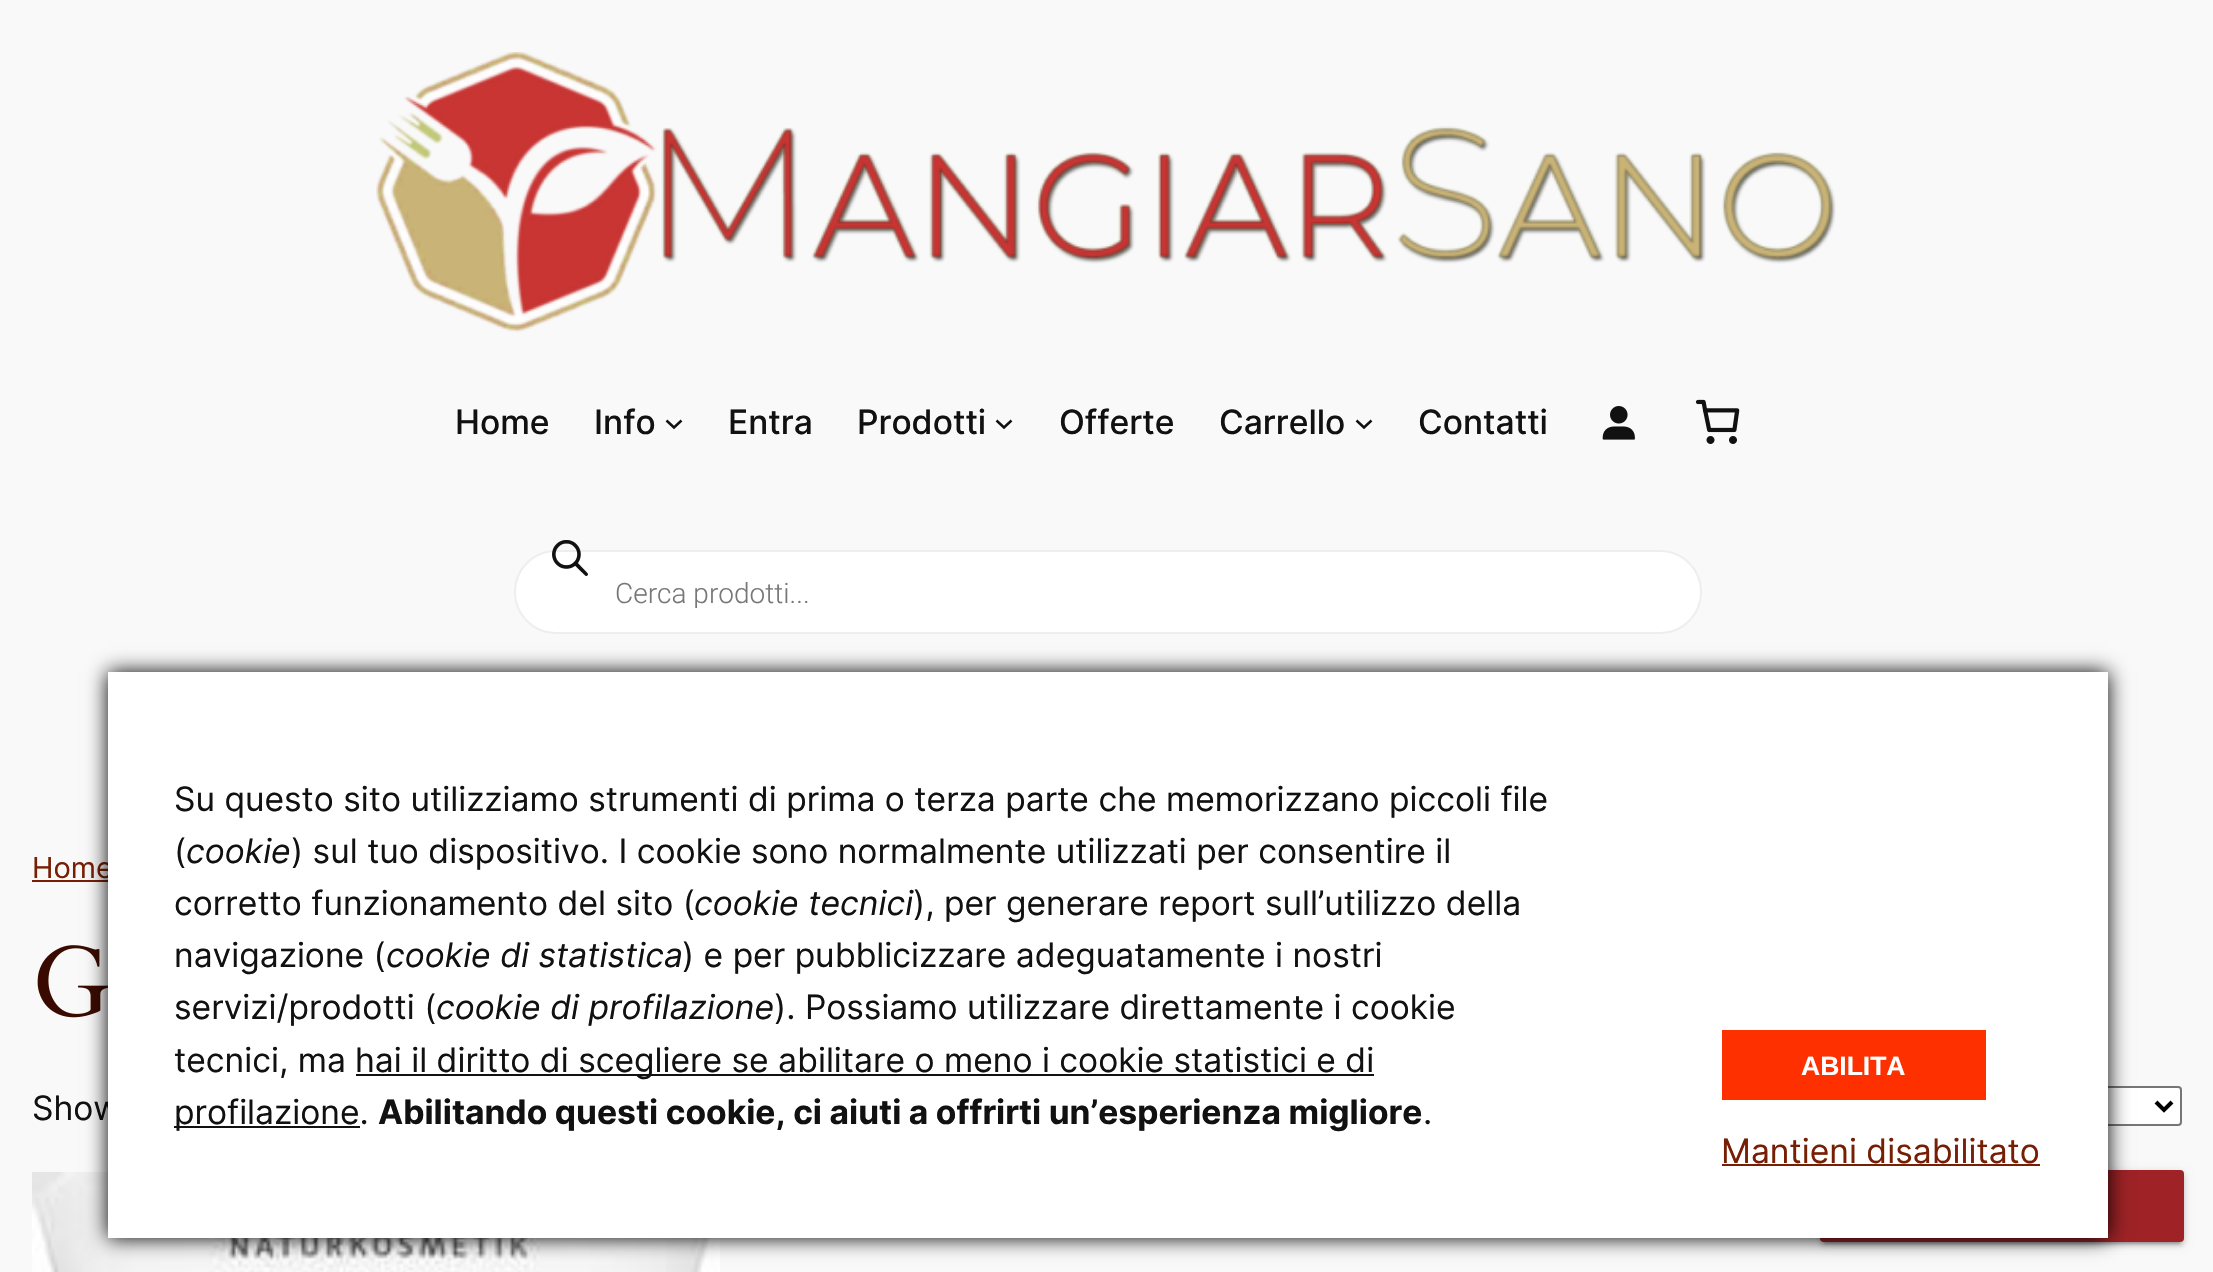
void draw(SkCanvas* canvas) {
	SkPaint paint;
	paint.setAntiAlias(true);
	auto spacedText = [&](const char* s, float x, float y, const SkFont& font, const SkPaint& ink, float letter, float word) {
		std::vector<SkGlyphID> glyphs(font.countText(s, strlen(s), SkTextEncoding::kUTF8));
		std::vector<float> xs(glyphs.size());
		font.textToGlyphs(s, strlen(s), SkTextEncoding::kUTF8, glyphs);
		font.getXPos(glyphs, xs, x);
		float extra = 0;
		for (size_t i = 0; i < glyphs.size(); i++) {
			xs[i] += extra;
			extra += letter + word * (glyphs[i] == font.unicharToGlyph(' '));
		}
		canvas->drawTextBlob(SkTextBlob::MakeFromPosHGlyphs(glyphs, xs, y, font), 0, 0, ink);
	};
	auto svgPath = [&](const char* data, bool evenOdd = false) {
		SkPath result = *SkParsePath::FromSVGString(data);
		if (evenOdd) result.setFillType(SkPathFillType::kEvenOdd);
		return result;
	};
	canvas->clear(0xfff9f9f9);
	canvas->drawImageRect(SkImages::DeferredFromEncodedData(SkData::MakeFromFileName("img1.png")), SkRect::MakeXYWH(376, 52, 1460, 281), SkSamplingOptions());
	SkFont f1(fontMgr->matchFamilyStyle("Inter", SkFontStyle(500, SkFontStyle::kNormal_Width, SkFontStyle::kUpright_Slant)), 33.6);
	f1.setSubpixel(true);
	paint.setColor(0xff111111);
	canvas->drawString("Home", 455, 434, f1, paint);
	canvas->drawString("Info", 594, 434, f1, paint);
	paint.setStroke(true);
	paint.setStrokeWidth(2.5);
	canvas->drawPath(svgPath("M666.5 420.5L674 427.5L681.5 420.5"), paint);
	paint.setStroke(false);
	canvas->drawString("Entra", 728, 434, f1, paint);
	canvas->drawString("Prodotti", 857, 434, f1, paint);
	paint.setStroke(true);
	canvas->drawPath(svgPath("M996.5 420.5L1004 427.5L1011.5 420.5"), paint);
	paint.setStroke(false);
	canvas->drawString("Offerte", 1059, 434, f1, paint);
	canvas->drawString("Carrello", 1219, 434, f1, paint);
	paint.setStroke(true);
	canvas->drawPath(svgPath("M1356.5 420.5L1364 427.5L1371.5 420.5"), paint);
	paint.setStroke(false);
	canvas->drawString("Contatti", 1418, 434, f1, paint);
	canvas->drawImageRect(SkImages::DeferredFromEncodedData(SkData::MakeFromFileName("img2.png")), SkRect::MakeXYWH(1602, 406, 33, 34), SkSamplingOptions());
	canvas->drawImageRect(SkImages::DeferredFromEncodedData(SkData::MakeFromFileName("img3.png")), SkRect::MakeXYWH(1695, 399, 45, 45), SkSamplingOptions());
	paint.setStroke(true);
	paint.setStrokeWidth(2);
	paint.setColor(0xffeeeeee);
	canvas->drawRoundRect(SkRect::MakeXYWH(515, 551, 1186, 82), 41, 41, paint);
	paint.setStroke(false);
	paint.setColor(0xffffffff);
	canvas->drawRoundRect(SkRect::MakeXYWH(516, 552, 1184, 80), 40, 40, paint);
	canvas->drawImageRect(SkImages::DeferredFromEncodedData(SkData::MakeFromFileName("img4.png")), SkRect::MakeXYWH(552, 540, 36, 36), SkSamplingOptions());
	canvas->save();
	canvas->clipRect(SkRect::MakeXYWH(616, 576, 1032, 32));
	SkFont f2(fontMgr->matchFamilyStyle("Roboto", SkFontStyle(300, SkFontStyle::kNormal_Width, SkFontStyle::kUpright_Slant)), 28);
	f2.setSubpixel(true);
	paint.setColor(0xff777777);
	canvas->drawString("Cerca prodotti...", 615, 603, f2, paint);
	canvas->restore();
	SkFont f3(fontMgr->matchFamilyStyle("Inter", SkFontStyle::Normal()), 29);
	f3.setSubpixel(true);
	paint.setColor(0xff771f04);
	canvas->drawString("Home", 32, 878, f3, paint);
	canvas->drawRect(SkRect::MakeXYWH(32, 880, 80, 2), paint);
	canvas->drawImageRect(SkImages::DeferredFromEncodedData(SkData::MakeFromFileName("img5.png")), SkRect::MakeXYWH(37, 945, 71, 73), SkSamplingOptions());
	SkFont f4(fontMgr->matchFamilyStyle("Inter", SkFontStyle::Normal()), 33.6);
	f4.setSubpixel(true);
	paint.setColor(0xff111111);
	canvas->drawString("Show", 32, 1120, f4, paint);
	paint.setColor(0xffffffff);
	canvas->drawRoundRect(SkRect::MakeXYWH(1823, 1087, 358, 38), 3, 3, paint);
	paint.setStroke(true);
	paint.setColor(0xff767676);
	canvas->drawRoundRect(SkRect::MakeXYWH(1823, 1087, 358, 38), 3, 3, paint);
	paint.setStrokeWidth(4);
	paint.setColor(0xff000000);
	canvas->drawPath(svgPath("M2156 1102L2164 1110L2172 1102"), paint);
	canvas->drawImageRect(SkImages::DeferredFromEncodedData(SkData::MakeFromFileName("img6.png")), SkRect::MakeXYWH(32, 1172, 688, 100), SkSamplingOptions());
	paint.setStroke(false);
	paint.setColor(0x33000000);
	paint.setMaskFilter(SkMaskFilter::MakeBlur(kNormal_SkBlurStyle, 1));
	canvas->drawRect(SkRect::MakeXYWH(1824, 1180, 356, 64), paint);
	paint.setMaskFilter(nullptr);
	paint.setColor(0x1f000000);
	paint.setMaskFilter(SkMaskFilter::MakeBlur(kNormal_SkBlurStyle, 5));
	canvas->drawRoundRect(SkRect::MakeXYWH(1820, 1172, 364, 72), 4, 4, paint);
	paint.setMaskFilter(nullptr);
	paint.setColor(0x24000000);
	paint.setMaskFilter(SkMaskFilter::MakeBlur(kNormal_SkBlurStyle, 2));
	canvas->drawRoundRect(SkRect::MakeXYWH(1820, 1174, 364, 72), 4, 4, paint);
	paint.setMaskFilter(nullptr);
	paint.setColor(0xff9e2226);
	canvas->drawRoundRect(SkRect::MakeXYWH(1820, 1170, 364, 72), 4, 4, paint);
	paint.setColor(0xff000000);
	paint.setMaskFilter(SkMaskFilter::MakeBlur(kNormal_SkBlurStyle, 10));
	canvas->drawRect(SkRect::MakeXYWH(108, 672, 2000, 566), paint);
	paint.setMaskFilter(nullptr);
	paint.setColor(0xffffffff);
	canvas->drawRect(SkRect::MakeXYWH(108, 672, 2000, 566), paint);
	paint.setColor(0xff111111);
	canvas->drawString("Su questo sito utilizziamo strumenti di prima o terza parte che memorizzano piccoli file", 174, 811, f4, paint);
	canvas->drawString("(", 174, 863, f4, paint);
	SkFont f5(fontMgr->matchFamilyStyle("Inter", SkFontStyle::Italic()), 33.6);
	f5.setSubpixel(true);
	canvas->drawString("cookie", 186, 863, f5, paint);
	canvas->drawString(") sul tuo dispositivo. I cookie sono normalmente utilizzati per consentire il", 291, 863, f4, paint);
	canvas->drawString("corretto funzionamento del sito (", 174, 915, f4, paint);
	canvas->drawString("cookie tecnici", 694, 915, f5, paint);
	canvas->drawString("), per generare report sull’utilizzo della", 913, 915, f4, paint);
	canvas->drawString("navigazione (", 174, 967, f4, paint);
	canvas->drawString("cookie di statistica", 386, 967, f5, paint);
	canvas->drawString(") e per pubblicizzare adeguatamente i nostri", 682, 967, f4, paint);
	canvas->drawString("servizi/prodotti (", 174, 1019, f4, paint);
	canvas->drawString("cookie di profilazione", 436, 1019, f5, paint);
	canvas->drawString("). Possiamo utilizzare direttamente i cookie", 774, 1019, f4, paint);
	canvas->drawString("tecnici, ma", 174, 1072, f4, paint);
	canvas->drawRect(SkRect::MakeXYWH(356, 1074, 1018, 2), paint);
	canvas->drawString("hai il diritto di scegliere se abilitare o meno i cookie statistici e di", 355, 1072, f4, paint);
	canvas->drawRect(SkRect::MakeXYWH(174, 1126, 186, 2), paint);
	canvas->drawString("profilazione.", 174, 1124, f4, paint);
	SkFont f6(fontMgr->matchFamilyStyle("Inter", SkFontStyle::Bold()), 33.6);
	f6.setSubpixel(true);
	spacedText("Abilitando questi cookie, ci aiuti a offrirti un’esperienza migliore", 378, 1124, f6, paint, 0, -0.25);
	canvas->drawString(".", 1423, 1124, f4, paint);
	paint.setColor(0xffff3000);
	canvas->drawRect(SkRect::MakeXYWH(1722, 1030, 264, 70), paint);
	SkFont f7(fontMgr->matchFamilyStyle("Liberation Sans", SkFontStyle::Bold()), 26.5);
	f7.setSubpixel(true);
	paint.setColor(0xffffffff);
	canvas->drawString("ABILITA", 1801, 1075, f7, paint);
	paint.setColor(0xff771f04);
	canvas->drawString("Mantieni disabilitato", 1721, 1163, f4, paint);
	canvas->drawRect(SkRect::MakeXYWH(1722, 1164, 318, 2), paint);
}
